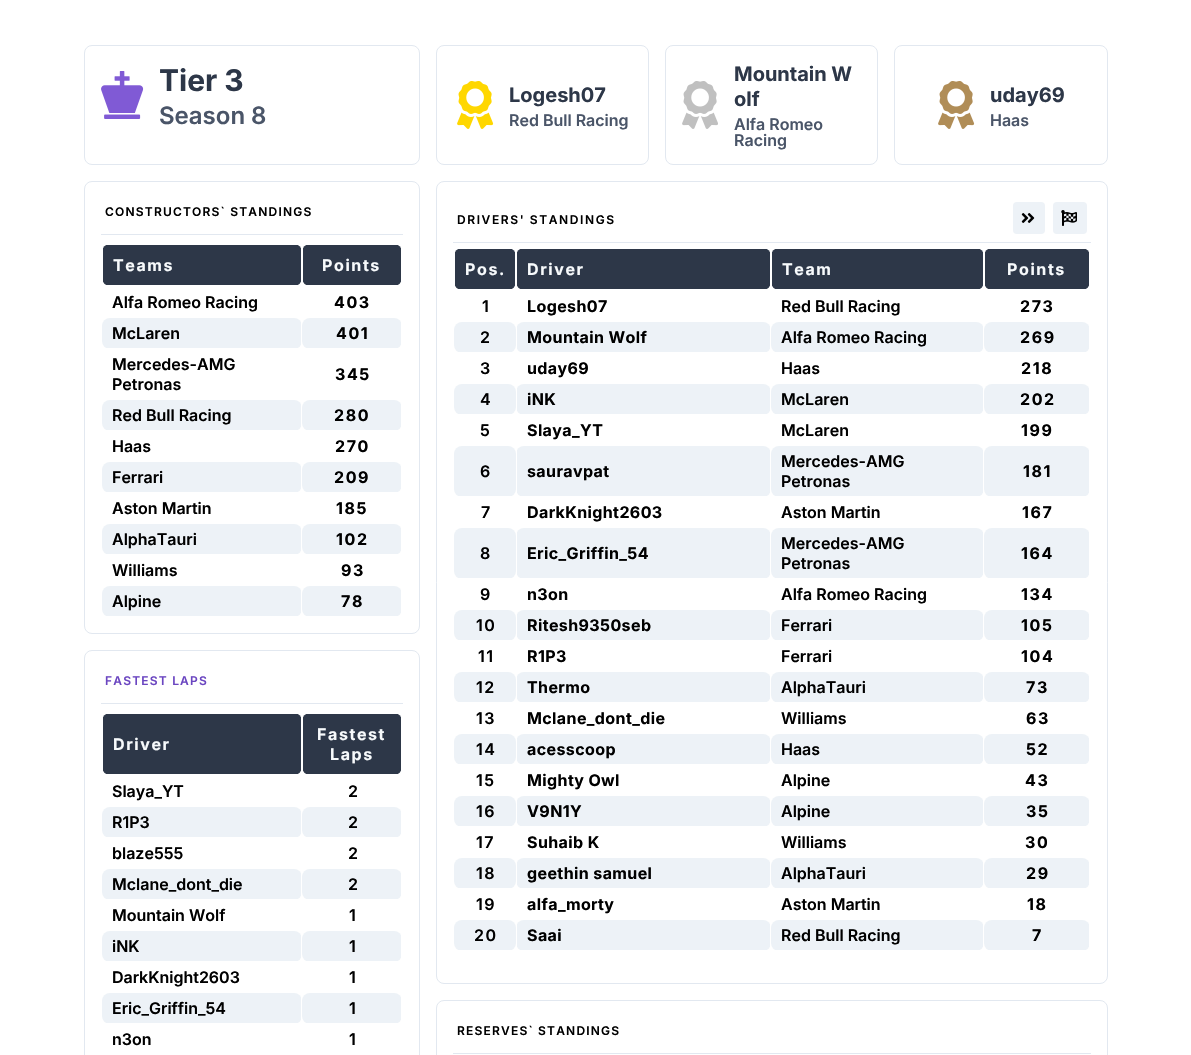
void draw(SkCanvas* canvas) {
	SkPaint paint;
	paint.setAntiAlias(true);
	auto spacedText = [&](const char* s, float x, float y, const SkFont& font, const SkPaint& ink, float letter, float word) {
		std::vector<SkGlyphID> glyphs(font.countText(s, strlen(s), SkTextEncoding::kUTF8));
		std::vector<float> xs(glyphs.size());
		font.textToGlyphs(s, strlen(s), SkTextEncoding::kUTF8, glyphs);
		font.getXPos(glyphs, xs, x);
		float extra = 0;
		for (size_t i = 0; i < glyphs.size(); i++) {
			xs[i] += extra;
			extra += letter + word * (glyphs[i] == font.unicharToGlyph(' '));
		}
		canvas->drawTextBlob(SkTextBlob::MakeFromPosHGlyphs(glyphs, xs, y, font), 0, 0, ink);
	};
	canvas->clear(0xffffffff);
	paint.setStroke(true);
	paint.setStrokeWidth(1);
	paint.setColor(0xffe2e8f0);
	canvas->drawRoundRect(SkRect::MakeXYWH(84.5, 45.5, 335, 119), 7.5, 7.5, paint);
	canvas->drawImageRect(SkImages::DeferredFromEncodedData(SkData::MakeFromFileName("img1.png")), SkRect::MakeXYWH(101, 71, 43, 48), SkSamplingOptions());
	SkFont f1(fontMgr->matchFamilyStyle("Inter", SkFontStyle::Bold()), 30);
	f1.setSubpixel(true);
	paint.setStroke(false);
	paint.setColor(0xff2d3748);
	canvas->drawString("Tier 3", 159, 91, f1, paint);
	SkFont f2(fontMgr->matchFamilyStyle("Inter", SkFontStyle(600, SkFontStyle::kNormal_Width, SkFontStyle::kUpright_Slant)), 24);
	f2.setSubpixel(true);
	paint.setColor(0xff4a5568);
	canvas->drawString("Season 8", 159, 124, f2, paint);
	paint.setStroke(true);
	paint.setColor(0xffe2e8f0);
	canvas->drawRoundRect(SkRect::MakeXYWH(436.5, 45.5, 212, 119), 7.5, 7.5, paint);
	canvas->drawImageRect(SkImages::DeferredFromEncodedData(SkData::MakeFromFileName("img2.png")), SkRect::MakeXYWH(457, 81, 37, 48), SkSamplingOptions());
	SkFont f3(fontMgr->matchFamilyStyle("Inter", SkFontStyle::Bold()), 20);
	f3.setSubpixel(true);
	paint.setStroke(false);
	paint.setColor(0xff2d3748);
	canvas->drawString("Logesh07", 509, 102, f3, paint);
	SkFont f4(fontMgr->matchFamilyStyle("Inter", SkFontStyle(600, SkFontStyle::kNormal_Width, SkFontStyle::kUpright_Slant)), 16);
	f4.setSubpixel(true);
	paint.setColor(0xff4a5568);
	canvas->drawString("Red Bull Racing", 509, 126, f4, paint);
	paint.setStroke(true);
	paint.setColor(0xffe2e8f0);
	canvas->drawRoundRect(SkRect::MakeXYWH(665.5, 45.5, 212, 119), 7.5, 7.5, paint);
	canvas->drawImageRect(SkImages::DeferredFromEncodedData(SkData::MakeFromFileName("img3.png")), SkRect::MakeXYWH(682, 81, 36, 48), SkSamplingOptions());
	paint.setStroke(false);
	paint.setColor(0xff2d3748);
	canvas->drawString("Mountain W", 734, 81, f3, paint);
	canvas->drawString("olf", 734, 106, f3, paint);
	paint.setColor(0xff4a5568);
	canvas->drawString("Alfa Romeo", 734, 130, f4, paint);
	canvas->drawString("Racing", 734, 146, f4, paint);
	paint.setStroke(true);
	paint.setColor(0xffe2e8f0);
	canvas->drawRoundRect(SkRect::MakeXYWH(894.5, 45.5, 213, 119), 7.5, 7.5, paint);
	canvas->drawImageRect(SkImages::DeferredFromEncodedData(SkData::MakeFromFileName("img4.png")), SkRect::MakeXYWH(938, 81, 37, 48), SkSamplingOptions());
	paint.setStroke(false);
	paint.setColor(0xff2d3748);
	canvas->drawString("uday69", 990, 102, f3, paint);
	paint.setColor(0xff4a5568);
	canvas->drawString("Haas", 990, 126, f4, paint);
	paint.setStroke(true);
	paint.setColor(0xffe2e8f0);
	canvas->drawRoundRect(SkRect::MakeXYWH(84.5, 181.5, 335, 452), 7.5, 7.5, paint);
	paint.setStroke(false);
	canvas->drawRect(SkRect::MakeXYWH(101, 234, 302, 1), paint);
	SkFont f5(fontMgr->matchFamilyStyle("Inter", SkFontStyle(600, SkFontStyle::kNormal_Width, SkFontStyle::kUpright_Slant)), 12);
	f5.setSubpixel(true);
	paint.setColor(0xff000000);
	spacedText("CONSTRUCTORS` STANDINGS", 105, 216, f5, paint, 1.2, 0);
	paint.setColor(0xff2d3748);
	canvas->drawRoundRect(SkRect::MakeXYWH(102, 244, 200, 42), 8, 8, paint);
	canvas->drawRoundRect(SkRect::MakeXYWH(302, 244, 100, 42), 8, 8, paint);
	paint.setColor(0xffffffff);
	canvas->drawRect(SkRect::MakeXYWH(301, 244, 102, 1), paint);
	canvas->drawRect(SkRect::MakeXYWH(401, 243, 1, 44), paint);
	canvas->drawRect(SkRect::MakeXYWH(301, 285, 102, 1), paint);
	canvas->drawRect(SkRect::MakeXYWH(301, 243, 2, 44), paint);
	canvas->drawRect(SkRect::MakeXYWH(101, 244, 202, 1), paint);
	canvas->drawRect(SkRect::MakeXYWH(101, 285, 202, 1), paint);
	canvas->drawRect(SkRect::MakeXYWH(102, 243, 1, 44), paint);
	SkFont f6(fontMgr->matchFamilyStyle("Inter", SkFontStyle::Bold()), 16);
	f6.setSubpixel(true);
	paint.setColor(0xfff7fafc);
	spacedText("Teams", 113, 271, f6, paint, 1.6, 0);
	spacedText("Points", 322, 271, f6, paint, 1.6, 0);
	paint.setColor(0xff000000);
	canvas->drawString("Alfa Romeo Racing", 112, 308, f4, paint);
	spacedText("403", 334, 308, f6, paint, 1.6, 0);
	paint.setColor(0xffedf2f7);
	canvas->drawRoundRect(SkRect::MakeXYWH(102, 318, 200, 31), 8, 8, paint);
	paint.setColor(0xff000000);
	canvas->drawString("McLaren", 112, 339, f4, paint);
	paint.setColor(0xffedf2f7);
	canvas->drawRoundRect(SkRect::MakeXYWH(302, 318, 100, 31), 8, 8, paint);
	paint.setColor(0xffffffff);
	canvas->drawRect(SkRect::MakeXYWH(101, 348, 301, 1), paint);
	canvas->drawRect(SkRect::MakeXYWH(401, 317, 1, 32), paint);
	canvas->drawRect(SkRect::MakeXYWH(301, 317, 1, 32), paint);
	paint.setColor(0xff000000);
	spacedText("401", 336, 339, f6, paint, 1.6, 0);
	canvas->drawString("Mercedes-AMG", 112, 370, f4, paint);
	canvas->drawString("Petronas", 112, 390, f4, paint);
	spacedText("345", 335, 380, f6, paint, 1.6, 0);
	paint.setColor(0xffedf2f7);
	canvas->drawRoundRect(SkRect::MakeXYWH(102, 400, 200, 31), 8, 8, paint);
	paint.setColor(0xff000000);
	canvas->drawString("Red Bull Racing", 112, 421, f4, paint);
	paint.setColor(0xffedf2f7);
	canvas->drawRoundRect(SkRect::MakeXYWH(302, 400, 100, 31), 8, 8, paint);
	paint.setColor(0xffffffff);
	canvas->drawRect(SkRect::MakeXYWH(101, 430, 301, 1), paint);
	canvas->drawRect(SkRect::MakeXYWH(401, 399, 1, 32), paint);
	canvas->drawRect(SkRect::MakeXYWH(301, 399, 1, 32), paint);
	paint.setColor(0xff000000);
	spacedText("280", 334, 421, f6, paint, 1.6, 0);
	canvas->drawString("Haas", 112, 452, f4, paint);
	spacedText("270", 335, 452, f6, paint, 1.6, 0);
	paint.setColor(0xffedf2f7);
	canvas->drawRoundRect(SkRect::MakeXYWH(102, 462, 200, 31), 8, 8, paint);
	paint.setColor(0xff000000);
	canvas->drawString("Ferrari", 112, 483, f4, paint);
	paint.setColor(0xffedf2f7);
	canvas->drawRoundRect(SkRect::MakeXYWH(302, 462, 100, 31), 8, 8, paint);
	paint.setColor(0xffffffff);
	canvas->drawRect(SkRect::MakeXYWH(101, 492, 301, 1), paint);
	canvas->drawRect(SkRect::MakeXYWH(401, 461, 1, 32), paint);
	canvas->drawRect(SkRect::MakeXYWH(301, 461, 1, 32), paint);
	paint.setColor(0xff000000);
	spacedText("209", 334, 483, f6, paint, 1.6, 0);
	canvas->drawString("Aston Martin", 112, 514, f4, paint);
	spacedText("185", 336, 514, f6, paint, 1.6, 0);
	paint.setColor(0xffedf2f7);
	canvas->drawRoundRect(SkRect::MakeXYWH(102, 524, 200, 31), 8, 8, paint);
	paint.setColor(0xff000000);
	canvas->drawString("AlphaTauri", 112, 545, f4, paint);
	paint.setColor(0xffedf2f7);
	canvas->drawRoundRect(SkRect::MakeXYWH(302, 524, 100, 31), 8, 8, paint);
	paint.setColor(0xffffffff);
	canvas->drawRect(SkRect::MakeXYWH(101, 554, 301, 1), paint);
	canvas->drawRect(SkRect::MakeXYWH(401, 523, 1, 32), paint);
	canvas->drawRect(SkRect::MakeXYWH(301, 523, 1, 32), paint);
	paint.setColor(0xff000000);
	spacedText("102", 336, 545, f6, paint, 1.6, 0);
	canvas->drawString("Williams", 112, 576, f4, paint);
	spacedText("93", 341, 576, f6, paint, 1.6, 0);
	paint.setColor(0xffedf2f7);
	canvas->drawRoundRect(SkRect::MakeXYWH(102, 586, 200, 31), 8, 8, paint);
	canvas->drawRoundRect(SkRect::MakeXYWH(302, 586, 100, 31), 8, 8, paint);
	paint.setColor(0xffffffff);
	canvas->drawRect(SkRect::MakeXYWH(401, 585, 1, 32), paint);
	canvas->drawRect(SkRect::MakeXYWH(301, 616, 101, 1), paint);
	canvas->drawRect(SkRect::MakeXYWH(301, 585, 1, 32), paint);
	canvas->drawRect(SkRect::MakeXYWH(101, 616, 201, 1), paint);
	paint.setColor(0xff000000);
	canvas->drawString("Alpine", 112, 607, f4, paint);
	spacedText("78", 341, 607, f6, paint, 1.6, 0);
	paint.setStroke(true);
	paint.setColor(0xffe2e8f0);
	canvas->drawRoundRect(SkRect::MakeXYWH(84.5, 650.5, 335, 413), 7.5, 7.5, paint);
	paint.setStroke(false);
	canvas->drawRect(SkRect::MakeXYWH(101, 703, 302, 1), paint);
	paint.setColor(0xff6b46c1);
	spacedText("FASTEST LAPS", 105, 685, f5, paint, 1.2, 0);
	paint.setColor(0xff2d3748);
	canvas->drawRoundRect(SkRect::MakeXYWH(102, 713, 200, 62), 8, 8, paint);
	canvas->drawRoundRect(SkRect::MakeXYWH(302, 713, 100, 62), 8, 8, paint);
	paint.setColor(0xffffffff);
	canvas->drawRect(SkRect::MakeXYWH(301, 713, 102, 1), paint);
	canvas->drawRect(SkRect::MakeXYWH(401, 712, 1, 64), paint);
	canvas->drawRect(SkRect::MakeXYWH(301, 774, 102, 1), paint);
	canvas->drawRect(SkRect::MakeXYWH(301, 712, 2, 64), paint);
	canvas->drawRect(SkRect::MakeXYWH(101, 713, 202, 1), paint);
	canvas->drawRect(SkRect::MakeXYWH(101, 774, 202, 1), paint);
	canvas->drawRect(SkRect::MakeXYWH(102, 712, 1, 64), paint);
	paint.setColor(0xfff7fafc);
	spacedText("Driver", 113, 750, f6, paint, 1.6, 0);
	spacedText("Fastest", 317, 740, f6, paint, 1.6, 0);
	spacedText("Laps", 330, 760, f6, paint, 1.6, 0);
	paint.setColor(0xff000000);
	canvas->drawString("Slaya_YT", 112, 797, f4, paint);
	canvas->drawString("2", 348, 797, f4, paint);
	paint.setColor(0xffedf2f7);
	canvas->drawRoundRect(SkRect::MakeXYWH(102, 807, 200, 31), 8, 8, paint);
	paint.setColor(0xff000000);
	canvas->drawString("R1P3", 112, 828, f4, paint);
	paint.setColor(0xffedf2f7);
	canvas->drawRoundRect(SkRect::MakeXYWH(302, 807, 100, 31), 8, 8, paint);
	paint.setColor(0xffffffff);
	canvas->drawRect(SkRect::MakeXYWH(101, 837, 301, 1), paint);
	canvas->drawRect(SkRect::MakeXYWH(401, 806, 1, 32), paint);
	canvas->drawRect(SkRect::MakeXYWH(301, 806, 1, 32), paint);
	paint.setColor(0xff000000);
	canvas->drawString("2", 348, 828, f4, paint);
	canvas->drawString("blaze555", 112, 859, f4, paint);
	canvas->drawString("2", 348, 859, f4, paint);
	paint.setColor(0xffedf2f7);
	canvas->drawRoundRect(SkRect::MakeXYWH(102, 869, 200, 31), 8, 8, paint);
	paint.setColor(0xff000000);
	canvas->drawString("Mclane_dont_die", 112, 890, f4, paint);
	paint.setColor(0xffedf2f7);
	canvas->drawRoundRect(SkRect::MakeXYWH(302, 869, 100, 31), 8, 8, paint);
	paint.setColor(0xffffffff);
	canvas->drawRect(SkRect::MakeXYWH(101, 899, 301, 1), paint);
	canvas->drawRect(SkRect::MakeXYWH(401, 868, 1, 32), paint);
	canvas->drawRect(SkRect::MakeXYWH(301, 868, 1, 32), paint);
	paint.setColor(0xff000000);
	canvas->drawString("2", 348, 890, f4, paint);
	canvas->drawString("Mountain Wolf", 112, 921, f4, paint);
	canvas->drawString("1", 349, 921, f4, paint);
	paint.setColor(0xffedf2f7);
	canvas->drawRoundRect(SkRect::MakeXYWH(102, 931, 200, 31), 8, 8, paint);
	paint.setColor(0xff000000);
	canvas->drawString("iNK", 112, 952, f4, paint);
	paint.setColor(0xffedf2f7);
	canvas->drawRoundRect(SkRect::MakeXYWH(302, 931, 100, 31), 8, 8, paint);
	paint.setColor(0xffffffff);
	canvas->drawRect(SkRect::MakeXYWH(101, 961, 301, 1), paint);
	canvas->drawRect(SkRect::MakeXYWH(401, 930, 1, 32), paint);
	canvas->drawRect(SkRect::MakeXYWH(301, 930, 1, 32), paint);
	paint.setColor(0xff000000);
	canvas->drawString("1", 349, 952, f4, paint);
	canvas->drawString("DarkKnight2603", 112, 983, f4, paint);
	canvas->drawString("1", 349, 983, f4, paint);
	paint.setColor(0xffedf2f7);
	canvas->drawRoundRect(SkRect::MakeXYWH(102, 993, 200, 31), 8, 8, paint);
	paint.setColor(0xff000000);
	canvas->drawString("Eric_Griffin_54", 112, 1014, f4, paint);
	paint.setColor(0xffedf2f7);
	canvas->drawRoundRect(SkRect::MakeXYWH(302, 993, 100, 31), 8, 8, paint);
	paint.setColor(0xffffffff);
	canvas->drawRect(SkRect::MakeXYWH(101, 1023, 301, 1), paint);
	canvas->drawRect(SkRect::MakeXYWH(401, 992, 1, 32), paint);
	canvas->drawRect(SkRect::MakeXYWH(301, 992, 1, 32), paint);
	paint.setColor(0xff000000);
	canvas->drawString("1", 349, 1014, f4, paint);
	canvas->drawString("n3on", 112, 1045, f4, paint);
	canvas->drawString("1", 349, 1045, f4, paint);
	paint.setStroke(true);
	paint.setColor(0xffe2e8f0);
	canvas->drawRoundRect(SkRect::MakeXYWH(436.5, 181.5, 671, 802), 7.5, 7.5, paint);
	paint.setStroke(false);
	canvas->drawRect(SkRect::MakeXYWH(453, 242, 638, 1), paint);
	paint.setColor(0xff000000);
	spacedText("DRIVERS' STANDINGS", 457, 224, f5, paint, 1.6, 0);
	paint.setColor(0xffedf2f7);
	canvas->drawRoundRect(SkRect::MakeXYWH(1013, 202, 32, 32), 4, 4, paint);
	canvas->drawImageRect(SkImages::DeferredFromEncodedData(SkData::MakeFromFileName("img5.png")), SkRect::MakeXYWH(1021, 213, 14, 10), SkSamplingOptions());
	canvas->drawRoundRect(SkRect::MakeXYWH(1053, 202, 34, 32), 4, 4, paint);
	canvas->drawImageRect(SkImages::DeferredFromEncodedData(SkData::MakeFromFileName("img6.png")), SkRect::MakeXYWH(1061, 210, 16, 16), SkSamplingOptions());
	paint.setColor(0xff2d3748);
	canvas->drawRoundRect(SkRect::MakeXYWH(454, 248, 62, 42), 8, 8, paint);
	canvas->drawRoundRect(SkRect::MakeXYWH(516, 248, 255, 42), 8, 8, paint);
	canvas->drawRoundRect(SkRect::MakeXYWH(771, 248, 213, 42), 8, 8, paint);
	canvas->drawRoundRect(SkRect::MakeXYWH(984, 248, 106, 42), 8, 8, paint);
	paint.setColor(0xffffffff);
	canvas->drawRect(SkRect::MakeXYWH(983, 248, 108, 1), paint);
	canvas->drawRect(SkRect::MakeXYWH(1089, 247, 1, 44), paint);
	canvas->drawRect(SkRect::MakeXYWH(983, 289, 108, 1), paint);
	canvas->drawRect(SkRect::MakeXYWH(983, 247, 2, 44), paint);
	canvas->drawRect(SkRect::MakeXYWH(770, 248, 215, 1), paint);
	canvas->drawRect(SkRect::MakeXYWH(770, 289, 215, 1), paint);
	canvas->drawRect(SkRect::MakeXYWH(770, 247, 2, 44), paint);
	canvas->drawRect(SkRect::MakeXYWH(515, 248, 257, 1), paint);
	canvas->drawRect(SkRect::MakeXYWH(515, 289, 257, 1), paint);
	canvas->drawRect(SkRect::MakeXYWH(515, 247, 2, 44), paint);
	canvas->drawRect(SkRect::MakeXYWH(453, 248, 64, 1), paint);
	canvas->drawRect(SkRect::MakeXYWH(453, 289, 64, 1), paint);
	canvas->drawRect(SkRect::MakeXYWH(454, 247, 1, 44), paint);
	paint.setColor(0xfff7fafc);
	spacedText("Pos.", 465, 275, f6, paint, 1.6, 0);
	spacedText("Driver", 527, 275, f6, paint, 1.6, 0);
	spacedText("Team", 782, 275, f6, paint, 1.6, 0);
	spacedText("Points", 1007, 275, f6, paint, 1.6, 0);
	paint.setColor(0xff000000);
	spacedText("1", 482, 312, f4, paint, 1.6, 0);
	spacedText("Logesh07", 527, 312, f6, paint, 0.4, 0);
	canvas->drawString("Red Bull Racing", 781, 312, f4, paint);
	spacedText("273", 1020, 312, f6, paint, 1.6, 0);
	paint.setColor(0xffedf2f7);
	canvas->drawRoundRect(SkRect::MakeXYWH(454, 322, 62, 31), 8, 8, paint);
	paint.setColor(0xff000000);
	spacedText("2", 480, 343, f4, paint, 1.6, 0);
	paint.setColor(0xffedf2f7);
	canvas->drawRoundRect(SkRect::MakeXYWH(516, 322, 255, 31), 8, 8, paint);
	canvas->drawRoundRect(SkRect::MakeXYWH(771, 322, 213, 31), 8, 8, paint);
	canvas->drawRoundRect(SkRect::MakeXYWH(984, 322, 106, 31), 8, 8, paint);
	paint.setColor(0xffffffff);
	canvas->drawRect(SkRect::MakeXYWH(453, 352, 637, 1), paint);
	canvas->drawRect(SkRect::MakeXYWH(516, 321, 1, 32), paint);
	paint.setColor(0xff000000);
	spacedText("Mountain Wolf", 527, 343, f6, paint, 0.4, 0);
	paint.setColor(0xffffffff);
	canvas->drawRect(SkRect::MakeXYWH(770, 321, 1, 32), paint);
	paint.setColor(0xff000000);
	canvas->drawString("Alfa Romeo Racing", 781, 343, f4, paint);
	paint.setColor(0xffffffff);
	canvas->drawRect(SkRect::MakeXYWH(1089, 321, 1, 32), paint);
	canvas->drawRect(SkRect::MakeXYWH(983, 321, 1, 32), paint);
	paint.setColor(0xff000000);
	spacedText("269", 1020, 343, f6, paint, 1.6, 0);
	spacedText("3", 480, 374, f4, paint, 1.6, 0);
	spacedText("uday69", 527, 374, f6, paint, 0.4, 0);
	canvas->drawString("Haas", 781, 374, f4, paint);
	spacedText("218", 1021, 374, f6, paint, 1.6, 0);
	paint.setColor(0xffedf2f7);
	canvas->drawRoundRect(SkRect::MakeXYWH(454, 384, 62, 31), 8, 8, paint);
	paint.setColor(0xff000000);
	spacedText("4", 480, 405, f4, paint, 1.6, 0);
	paint.setColor(0xffedf2f7);
	canvas->drawRoundRect(SkRect::MakeXYWH(516, 384, 255, 31), 8, 8, paint);
	canvas->drawRoundRect(SkRect::MakeXYWH(771, 384, 213, 31), 8, 8, paint);
	canvas->drawRoundRect(SkRect::MakeXYWH(984, 384, 106, 31), 8, 8, paint);
	paint.setColor(0xffffffff);
	canvas->drawRect(SkRect::MakeXYWH(453, 414, 637, 1), paint);
	canvas->drawRect(SkRect::MakeXYWH(516, 383, 1, 32), paint);
	paint.setColor(0xff000000);
	spacedText("iNK", 527, 405, f6, paint, 0.4, 0);
	paint.setColor(0xffffffff);
	canvas->drawRect(SkRect::MakeXYWH(770, 383, 1, 32), paint);
	paint.setColor(0xff000000);
	canvas->drawString("McLaren", 781, 405, f4, paint);
	paint.setColor(0xffffffff);
	canvas->drawRect(SkRect::MakeXYWH(1089, 383, 1, 32), paint);
	canvas->drawRect(SkRect::MakeXYWH(983, 383, 1, 32), paint);
	paint.setColor(0xff000000);
	spacedText("202", 1020, 405, f6, paint, 1.6, 0);
	spacedText("5", 480, 436, f4, paint, 1.6, 0);
	spacedText("Slaya_YT", 527, 436, f6, paint, 0.4, 0);
	canvas->drawString("McLaren", 781, 436, f4, paint);
	spacedText("199", 1021, 436, f6, paint, 1.6, 0);
	paint.setColor(0xffedf2f7);
	canvas->drawRoundRect(SkRect::MakeXYWH(454, 446, 62, 51), 8, 8, paint);
	paint.setColor(0xff000000);
	spacedText("6", 480, 477, f4, paint, 1.6, 0);
	paint.setColor(0xffedf2f7);
	canvas->drawRoundRect(SkRect::MakeXYWH(516, 446, 255, 51), 8, 8, paint);
	canvas->drawRoundRect(SkRect::MakeXYWH(771, 446, 213, 51), 8, 8, paint);
	canvas->drawRoundRect(SkRect::MakeXYWH(984, 446, 106, 51), 8, 8, paint);
	paint.setColor(0xffffffff);
	canvas->drawRect(SkRect::MakeXYWH(453, 496, 637, 1), paint);
	canvas->drawRect(SkRect::MakeXYWH(516, 445, 1, 52), paint);
	paint.setColor(0xff000000);
	spacedText("sauravpat", 527, 477, f6, paint, 0.4, 0);
	paint.setColor(0xffffffff);
	canvas->drawRect(SkRect::MakeXYWH(770, 445, 1, 52), paint);
	paint.setColor(0xff000000);
	canvas->drawString("Mercedes-AMG", 781, 467, f4, paint);
	canvas->drawString("Petronas", 781, 487, f4, paint);
	paint.setColor(0xffffffff);
	canvas->drawRect(SkRect::MakeXYWH(1089, 445, 1, 52), paint);
	canvas->drawRect(SkRect::MakeXYWH(983, 445, 1, 52), paint);
	paint.setColor(0xff000000);
	spacedText("181", 1023, 477, f6, paint, 1.6, 0);
	spacedText("7", 481, 518, f4, paint, 1.6, 0);
	spacedText("DarkKnight2603", 527, 518, f6, paint, 0.4, 0);
	canvas->drawString("Aston Martin", 781, 518, f4, paint);
	spacedText("167", 1022, 518, f6, paint, 1.6, 0);
	paint.setColor(0xffedf2f7);
	canvas->drawRoundRect(SkRect::MakeXYWH(454, 528, 62, 51), 8, 8, paint);
	paint.setColor(0xff000000);
	spacedText("8", 480, 559, f4, paint, 1.6, 0);
	paint.setColor(0xffedf2f7);
	canvas->drawRoundRect(SkRect::MakeXYWH(516, 528, 255, 51), 8, 8, paint);
	canvas->drawRoundRect(SkRect::MakeXYWH(771, 528, 213, 51), 8, 8, paint);
	canvas->drawRoundRect(SkRect::MakeXYWH(984, 528, 106, 51), 8, 8, paint);
	paint.setColor(0xffffffff);
	canvas->drawRect(SkRect::MakeXYWH(453, 578, 637, 1), paint);
	canvas->drawRect(SkRect::MakeXYWH(516, 527, 1, 52), paint);
	paint.setColor(0xff000000);
	spacedText("Eric_Griffin_54", 527, 559, f6, paint, 0.4, 0);
	paint.setColor(0xffffffff);
	canvas->drawRect(SkRect::MakeXYWH(770, 527, 1, 52), paint);
	paint.setColor(0xff000000);
	canvas->drawString("Mercedes-AMG", 781, 549, f4, paint);
	canvas->drawString("Petronas", 781, 569, f4, paint);
	paint.setColor(0xffffffff);
	canvas->drawRect(SkRect::MakeXYWH(1089, 527, 1, 52), paint);
	canvas->drawRect(SkRect::MakeXYWH(983, 527, 1, 52), paint);
	paint.setColor(0xff000000);
	spacedText("164", 1021, 559, f6, paint, 1.6, 0);
	spacedText("9", 480, 600, f4, paint, 1.6, 0);
	spacedText("n3on", 527, 600, f6, paint, 0.4, 0);
	canvas->drawString("Alfa Romeo Racing", 781, 600, f4, paint);
	spacedText("134", 1021, 600, f6, paint, 1.6, 0);
	paint.setColor(0xffedf2f7);
	canvas->drawRoundRect(SkRect::MakeXYWH(454, 610, 62, 31), 8, 8, paint);
	paint.setColor(0xff000000);
	spacedText("10", 476, 631, f4, paint, 1.6, 0);
	paint.setColor(0xffedf2f7);
	canvas->drawRoundRect(SkRect::MakeXYWH(516, 610, 255, 31), 8, 8, paint);
	canvas->drawRoundRect(SkRect::MakeXYWH(771, 610, 213, 31), 8, 8, paint);
	canvas->drawRoundRect(SkRect::MakeXYWH(984, 610, 106, 31), 8, 8, paint);
	paint.setColor(0xffffffff);
	canvas->drawRect(SkRect::MakeXYWH(453, 640, 637, 1), paint);
	canvas->drawRect(SkRect::MakeXYWH(516, 609, 1, 32), paint);
	paint.setColor(0xff000000);
	spacedText("Ritesh9350seb", 527, 631, f6, paint, 0.4, 0);
	paint.setColor(0xffffffff);
	canvas->drawRect(SkRect::MakeXYWH(770, 609, 1, 32), paint);
	paint.setColor(0xff000000);
	canvas->drawString("Ferrari", 781, 631, f4, paint);
	paint.setColor(0xffffffff);
	canvas->drawRect(SkRect::MakeXYWH(1089, 609, 1, 32), paint);
	canvas->drawRect(SkRect::MakeXYWH(983, 609, 1, 32), paint);
	paint.setColor(0xff000000);
	spacedText("105", 1021, 631, f6, paint, 1.6, 0);
	spacedText("11", 478, 662, f4, paint, 1.6, 0);
	spacedText("R1P3", 527, 662, f6, paint, 0.4, 0);
	canvas->drawString("Ferrari", 781, 662, f4, paint);
	spacedText("104", 1021, 662, f6, paint, 1.6, 0);
	paint.setColor(0xffedf2f7);
	canvas->drawRoundRect(SkRect::MakeXYWH(454, 672, 62, 31), 8, 8, paint);
	paint.setColor(0xff000000);
	spacedText("12", 476, 693, f4, paint, 1.6, 0);
	paint.setColor(0xffedf2f7);
	canvas->drawRoundRect(SkRect::MakeXYWH(516, 672, 255, 31), 8, 8, paint);
	canvas->drawRoundRect(SkRect::MakeXYWH(771, 672, 213, 31), 8, 8, paint);
	canvas->drawRoundRect(SkRect::MakeXYWH(984, 672, 106, 31), 8, 8, paint);
	paint.setColor(0xffffffff);
	canvas->drawRect(SkRect::MakeXYWH(453, 702, 637, 1), paint);
	canvas->drawRect(SkRect::MakeXYWH(516, 671, 1, 32), paint);
	paint.setColor(0xff000000);
	spacedText("Thermo", 527, 693, f6, paint, 0.4, 0);
	paint.setColor(0xffffffff);
	canvas->drawRect(SkRect::MakeXYWH(770, 671, 1, 32), paint);
	paint.setColor(0xff000000);
	canvas->drawString("AlphaTauri", 781, 693, f4, paint);
	paint.setColor(0xffffffff);
	canvas->drawRect(SkRect::MakeXYWH(1089, 671, 1, 32), paint);
	canvas->drawRect(SkRect::MakeXYWH(983, 671, 1, 32), paint);
	paint.setColor(0xff000000);
	spacedText("73", 1026, 693, f6, paint, 1.6, 0);
	spacedText("13", 476, 724, f4, paint, 1.6, 0);
	spacedText("Mclane_dont_die", 527, 724, f6, paint, 0.4, 0);
	canvas->drawString("Williams", 781, 724, f4, paint);
	spacedText("63", 1026, 724, f6, paint, 1.6, 0);
	paint.setColor(0xffedf2f7);
	canvas->drawRoundRect(SkRect::MakeXYWH(454, 734, 62, 31), 8, 8, paint);
	paint.setColor(0xff000000);
	spacedText("14", 476, 755, f4, paint, 1.6, 0);
	paint.setColor(0xffedf2f7);
	canvas->drawRoundRect(SkRect::MakeXYWH(516, 734, 255, 31), 8, 8, paint);
	canvas->drawRoundRect(SkRect::MakeXYWH(771, 734, 213, 31), 8, 8, paint);
	canvas->drawRoundRect(SkRect::MakeXYWH(984, 734, 106, 31), 8, 8, paint);
	paint.setColor(0xffffffff);
	canvas->drawRect(SkRect::MakeXYWH(453, 764, 637, 1), paint);
	canvas->drawRect(SkRect::MakeXYWH(516, 733, 1, 32), paint);
	paint.setColor(0xff000000);
	spacedText("acesscoop", 527, 755, f6, paint, 0.4, 0);
	paint.setColor(0xffffffff);
	canvas->drawRect(SkRect::MakeXYWH(770, 733, 1, 32), paint);
	paint.setColor(0xff000000);
	canvas->drawString("Haas", 781, 755, f4, paint);
	paint.setColor(0xffffffff);
	canvas->drawRect(SkRect::MakeXYWH(1089, 733, 1, 32), paint);
	canvas->drawRect(SkRect::MakeXYWH(983, 733, 1, 32), paint);
	paint.setColor(0xff000000);
	spacedText("52", 1026, 755, f6, paint, 1.6, 0);
	spacedText("15", 476, 786, f4, paint, 1.6, 0);
	spacedText("Mighty Owl", 527, 786, f6, paint, 0.4, 0);
	canvas->drawString("Alpine", 781, 786, f4, paint);
	spacedText("43", 1025, 786, f6, paint, 1.6, 0);
	paint.setColor(0xffedf2f7);
	canvas->drawRoundRect(SkRect::MakeXYWH(454, 796, 62, 31), 8, 8, paint);
	paint.setColor(0xff000000);
	spacedText("16", 476, 817, f4, paint, 1.6, 0);
	paint.setColor(0xffedf2f7);
	canvas->drawRoundRect(SkRect::MakeXYWH(516, 796, 255, 31), 8, 8, paint);
	canvas->drawRoundRect(SkRect::MakeXYWH(771, 796, 213, 31), 8, 8, paint);
	canvas->drawRoundRect(SkRect::MakeXYWH(984, 796, 106, 31), 8, 8, paint);
	paint.setColor(0xffffffff);
	canvas->drawRect(SkRect::MakeXYWH(453, 826, 637, 1), paint);
	canvas->drawRect(SkRect::MakeXYWH(516, 795, 1, 32), paint);
	paint.setColor(0xff000000);
	spacedText("V9N1Y", 527, 817, f6, paint, 0.4, 0);
	paint.setColor(0xffffffff);
	canvas->drawRect(SkRect::MakeXYWH(770, 795, 1, 32), paint);
	paint.setColor(0xff000000);
	canvas->drawString("Alpine", 781, 817, f4, paint);
	paint.setColor(0xffffffff);
	canvas->drawRect(SkRect::MakeXYWH(1089, 795, 1, 32), paint);
	canvas->drawRect(SkRect::MakeXYWH(983, 795, 1, 32), paint);
	paint.setColor(0xff000000);
	spacedText("35", 1026, 817, f6, paint, 1.6, 0);
	spacedText("17", 476, 848, f4, paint, 1.6, 0);
	spacedText("Suhaib K", 527, 848, f6, paint, 0.4, 0);
	canvas->drawString("Williams", 781, 848, f4, paint);
	spacedText("30", 1025, 848, f6, paint, 1.6, 0);
	paint.setColor(0xffedf2f7);
	canvas->drawRoundRect(SkRect::MakeXYWH(454, 858, 62, 31), 8, 8, paint);
	paint.setColor(0xff000000);
	spacedText("18", 476, 879, f4, paint, 1.6, 0);
	paint.setColor(0xffedf2f7);
	canvas->drawRoundRect(SkRect::MakeXYWH(516, 858, 255, 31), 8, 8, paint);
	canvas->drawRoundRect(SkRect::MakeXYWH(771, 858, 213, 31), 8, 8, paint);
	canvas->drawRoundRect(SkRect::MakeXYWH(984, 858, 106, 31), 8, 8, paint);
	paint.setColor(0xffffffff);
	canvas->drawRect(SkRect::MakeXYWH(453, 888, 637, 1), paint);
	canvas->drawRect(SkRect::MakeXYWH(516, 857, 1, 32), paint);
	paint.setColor(0xff000000);
	spacedText("geethin samuel", 527, 879, f6, paint, 0.4, 0);
	paint.setColor(0xffffffff);
	canvas->drawRect(SkRect::MakeXYWH(770, 857, 1, 32), paint);
	paint.setColor(0xff000000);
	canvas->drawString("AlphaTauri", 781, 879, f4, paint);
	paint.setColor(0xffffffff);
	canvas->drawRect(SkRect::MakeXYWH(1089, 857, 1, 32), paint);
	canvas->drawRect(SkRect::MakeXYWH(983, 857, 1, 32), paint);
	paint.setColor(0xff000000);
	spacedText("29", 1026, 879, f6, paint, 1.6, 0);
	spacedText("19", 476, 910, f4, paint, 1.6, 0);
	spacedText("alfa_morty", 527, 910, f6, paint, 0.4, 0);
	canvas->drawString("Aston Martin", 781, 910, f4, paint);
	spacedText("18", 1027, 910, f6, paint, 1.6, 0);
	paint.setColor(0xffedf2f7);
	canvas->drawRoundRect(SkRect::MakeXYWH(454, 920, 62, 31), 8, 8, paint);
	canvas->drawRoundRect(SkRect::MakeXYWH(516, 920, 255, 31), 8, 8, paint);
	canvas->drawRoundRect(SkRect::MakeXYWH(771, 920, 213, 31), 8, 8, paint);
	canvas->drawRoundRect(SkRect::MakeXYWH(984, 920, 106, 31), 8, 8, paint);
	paint.setColor(0xffffffff);
	canvas->drawRect(SkRect::MakeXYWH(1089, 919, 1, 32), paint);
	canvas->drawRect(SkRect::MakeXYWH(983, 950, 107, 1), paint);
	canvas->drawRect(SkRect::MakeXYWH(983, 919, 1, 32), paint);
	canvas->drawRect(SkRect::MakeXYWH(770, 950, 214, 1), paint);
	canvas->drawRect(SkRect::MakeXYWH(770, 919, 1, 32), paint);
	canvas->drawRect(SkRect::MakeXYWH(516, 950, 255, 1), paint);
	canvas->drawRect(SkRect::MakeXYWH(516, 919, 1, 32), paint);
	canvas->drawRect(SkRect::MakeXYWH(453, 950, 64, 1), paint);
	paint.setColor(0xff000000);
	spacedText("20", 474, 941, f4, paint, 1.6, 0);
	spacedText("Saai", 527, 941, f6, paint, 0.4, 0);
	canvas->drawString("Red Bull Racing", 781, 941, f4, paint);
	spacedText("7", 1032, 941, f6, paint, 1.6, 0);
	paint.setStroke(true);
	paint.setColor(0xffe2e8f0);
	canvas->drawRoundRect(SkRect::MakeXYWH(436.5, 1000.5, 671, 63), 7.5, 7.5, paint);
	paint.setStroke(false);
	canvas->drawRect(SkRect::MakeXYWH(453, 1053, 638, 1), paint);
	paint.setColor(0xff000000);
	spacedText("RESERVES` STANDINGS", 457, 1035, f5, paint, 1.2, 0);
}
